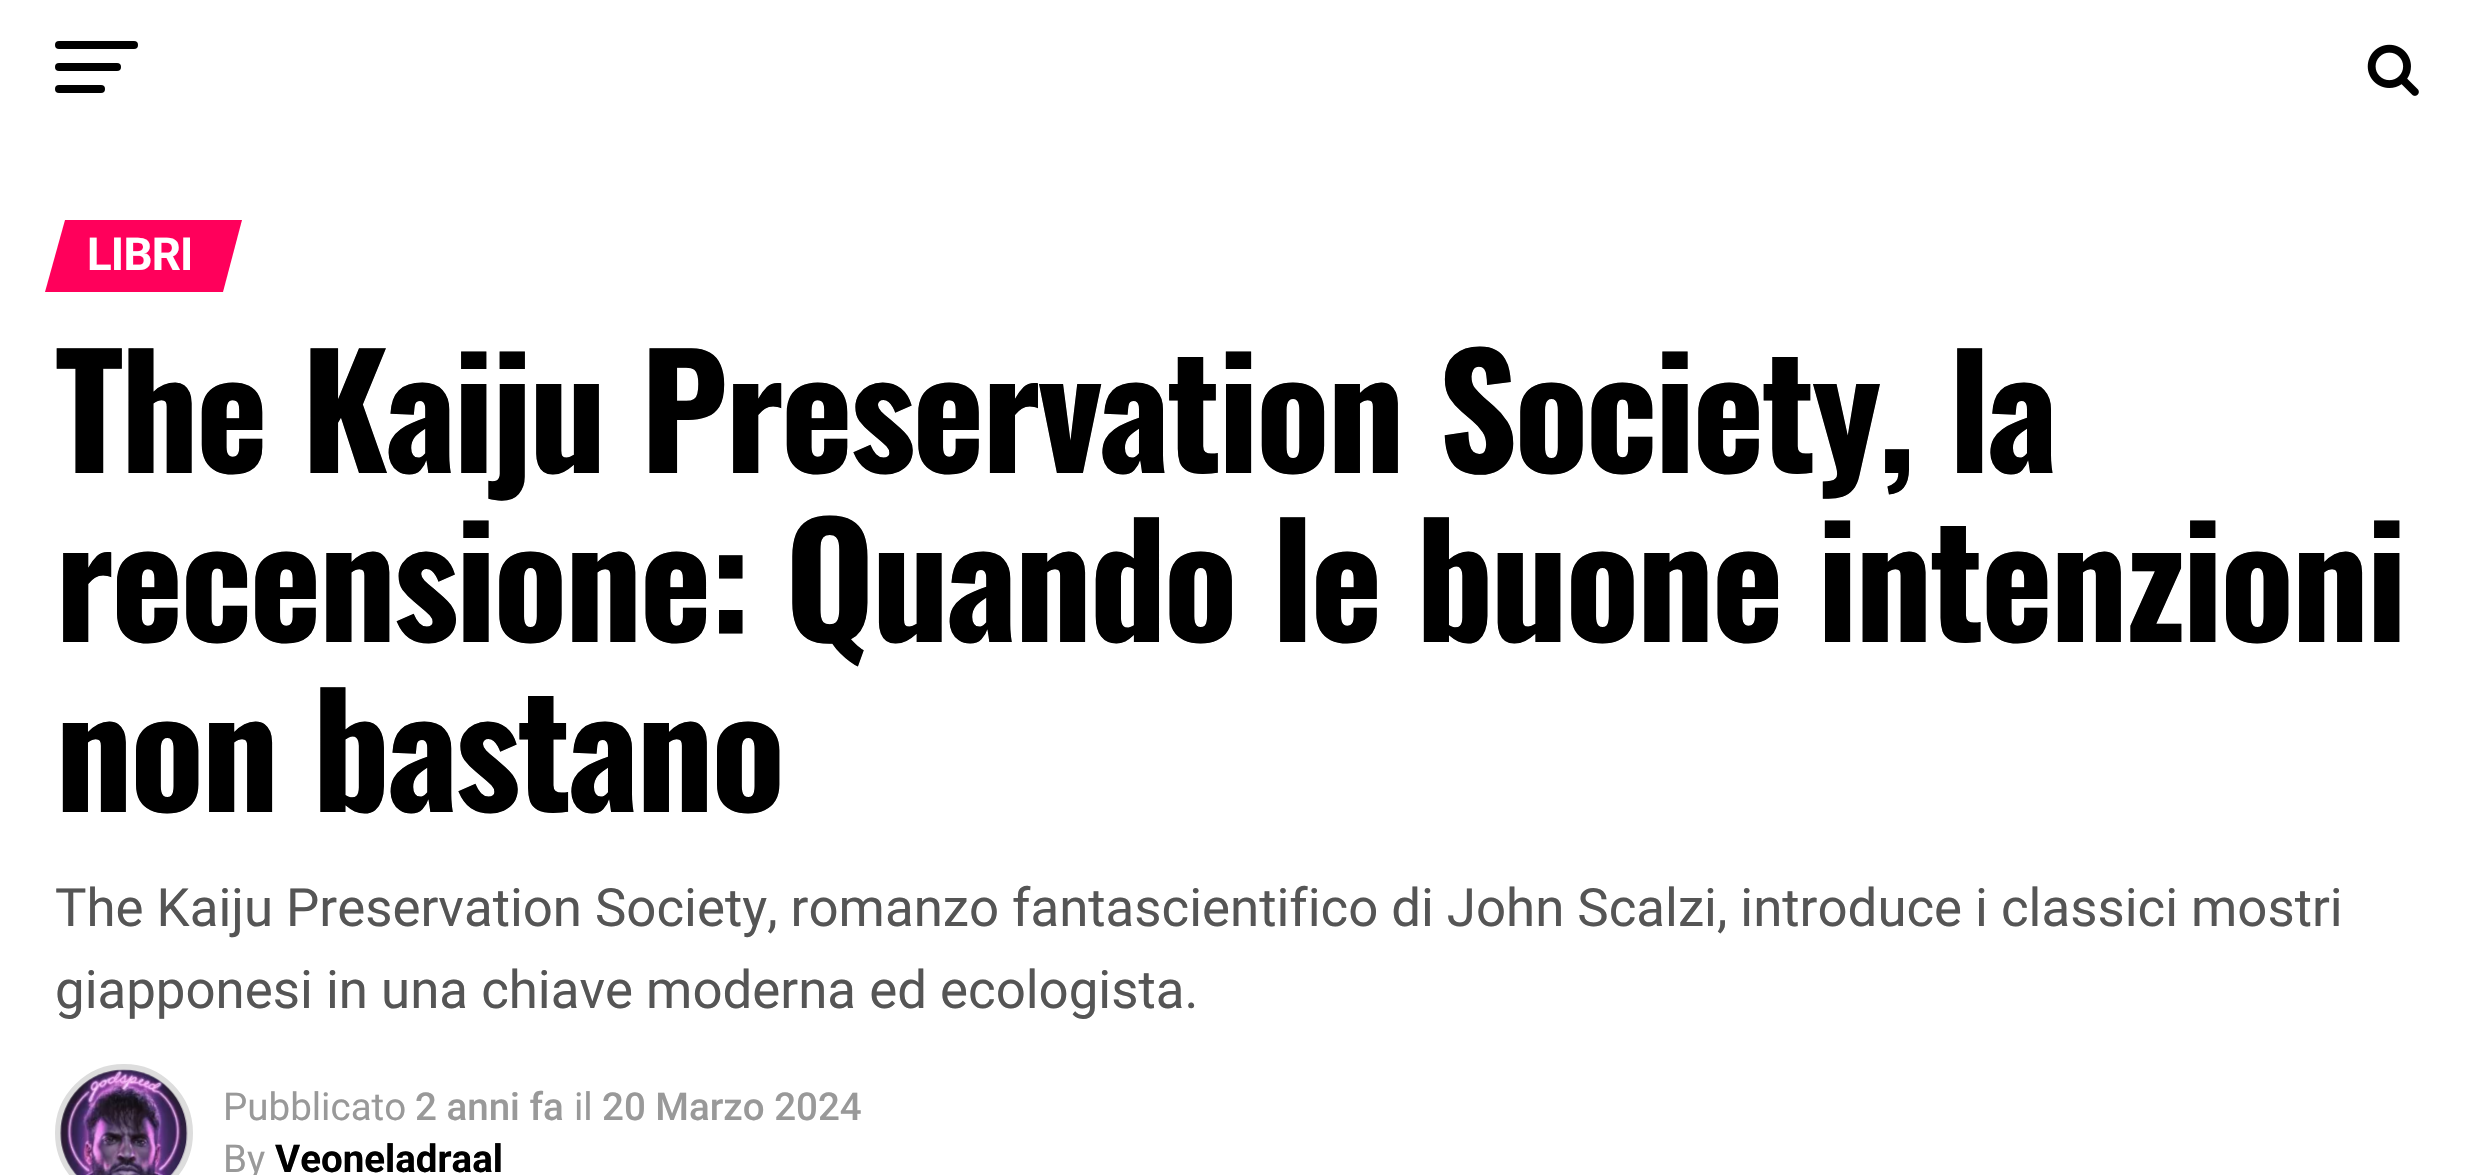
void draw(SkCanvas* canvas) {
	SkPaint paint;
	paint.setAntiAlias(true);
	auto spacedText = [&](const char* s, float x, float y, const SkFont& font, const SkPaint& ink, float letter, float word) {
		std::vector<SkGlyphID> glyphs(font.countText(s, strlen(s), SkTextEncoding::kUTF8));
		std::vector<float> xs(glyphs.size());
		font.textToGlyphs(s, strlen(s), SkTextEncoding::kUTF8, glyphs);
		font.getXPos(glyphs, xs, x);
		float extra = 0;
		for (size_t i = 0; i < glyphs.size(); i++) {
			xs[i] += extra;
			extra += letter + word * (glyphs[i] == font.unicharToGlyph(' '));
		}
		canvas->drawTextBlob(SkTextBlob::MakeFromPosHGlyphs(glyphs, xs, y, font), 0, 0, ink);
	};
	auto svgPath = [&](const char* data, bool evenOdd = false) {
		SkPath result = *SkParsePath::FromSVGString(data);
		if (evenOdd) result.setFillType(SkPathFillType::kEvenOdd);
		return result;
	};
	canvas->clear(0xffffffff);
	paint.setColor(0xff000000);
	canvas->drawRoundRect(SkRect::MakeXYWH(55, 41, 83, 8), 4, 4, paint);
	canvas->drawRoundRect(SkRect::MakeXYWH(55, 63, 66, 8), 4, 4, paint);
	canvas->drawRoundRect(SkRect::MakeXYWH(55, 85, 50, 8), 4, 4, paint);
	canvas->drawImageRect(SkImages::DeferredFromEncodedData(SkData::MakeFromFileName("img1.png")), SkRect::MakeXYWH(2367, 44, 52, 52), SkSamplingOptions());
	paint.setColor(0xffff005b);
	canvas->drawPath(svgPath("M65 220H242L223 292H45Z"), paint);
	SkFont f1(fontMgr->matchFamilyStyle("Roboto", SkFontStyle::Bold()), 45.5);
	f1.setSubpixel(true);
	paint.setColor(0xffffffff);
	spacedText("LIBRI", 87, 270, f1, paint, -0.75, 0);
	SkFont f2(fontMgr->matchFamilyStyle("Oswald", SkFontStyle::Bold()), 154);
	f2.setSubpixel(true);
	paint.setColor(0xff000000);
	spacedText("The Kaiju Preservation Society, la", 55, 473, f2, paint, -3.1, 0);
	spacedText("recensione: Quando le buone intenzioni", 55, 642, f2, paint, -3.1, 0);
	spacedText("non bastano", 55, 812, f2, paint, -3.1, 0);
	SkFont f3(fontMgr->matchFamilyStyle("Roboto", SkFontStyle::Normal()), 52.8);
	f3.setSubpixel(true);
	paint.setColor(0xff555555);
	spacedText("The Kaiju Preservation Society, romanzo fantascientifico di John Scalzi, introduce i classici mostri", 55, 926, f3, paint, 0, -0.1);
	canvas->drawString("giapponesi in una chiave moderna ed ecologista.", 55, 1008, f3, paint);
	paint.setStroke(true);
	paint.setStrokeWidth(6);
	paint.setColor(0xffdddddd);
	canvas->drawCircle(124, 1133, 66, paint);
	canvas->drawImageRect(SkImages::DeferredFromEncodedData(SkData::MakeFromFileName("img2.png")), SkRect::MakeXYWH(60, 1069, 128, 106), SkSamplingOptions());
	SkFont f4(fontMgr->matchFamilyStyle("Roboto", SkFontStyle::Normal()), 38.5);
	f4.setSubpixel(true);
	paint.setStroke(false);
	paint.setColor(0xff999999);
	canvas->drawString("Pubblicato", 223, 1120, f4, paint);
	SkFont f5(fontMgr->matchFamilyStyle("Roboto", SkFontStyle(500, SkFontStyle::kNormal_Width, SkFontStyle::kUpright_Slant)), 38.5);
	f5.setSubpixel(true);
	canvas->drawString("2 anni fa", 415, 1120, f5, paint);
	canvas->drawString("il", 574, 1120, f4, paint);
	canvas->drawString("20 Marzo 2024", 602, 1120, f5, paint);
	canvas->drawString("By", 223, 1172, f4, paint);
	SkFont f6(fontMgr->matchFamilyStyle("Roboto", SkFontStyle::Bold()), 38.5);
	f6.setSubpixel(true);
	paint.setColor(0xff000000);
	canvas->drawString("Veoneladraal", 275, 1172, f6, paint);
}
